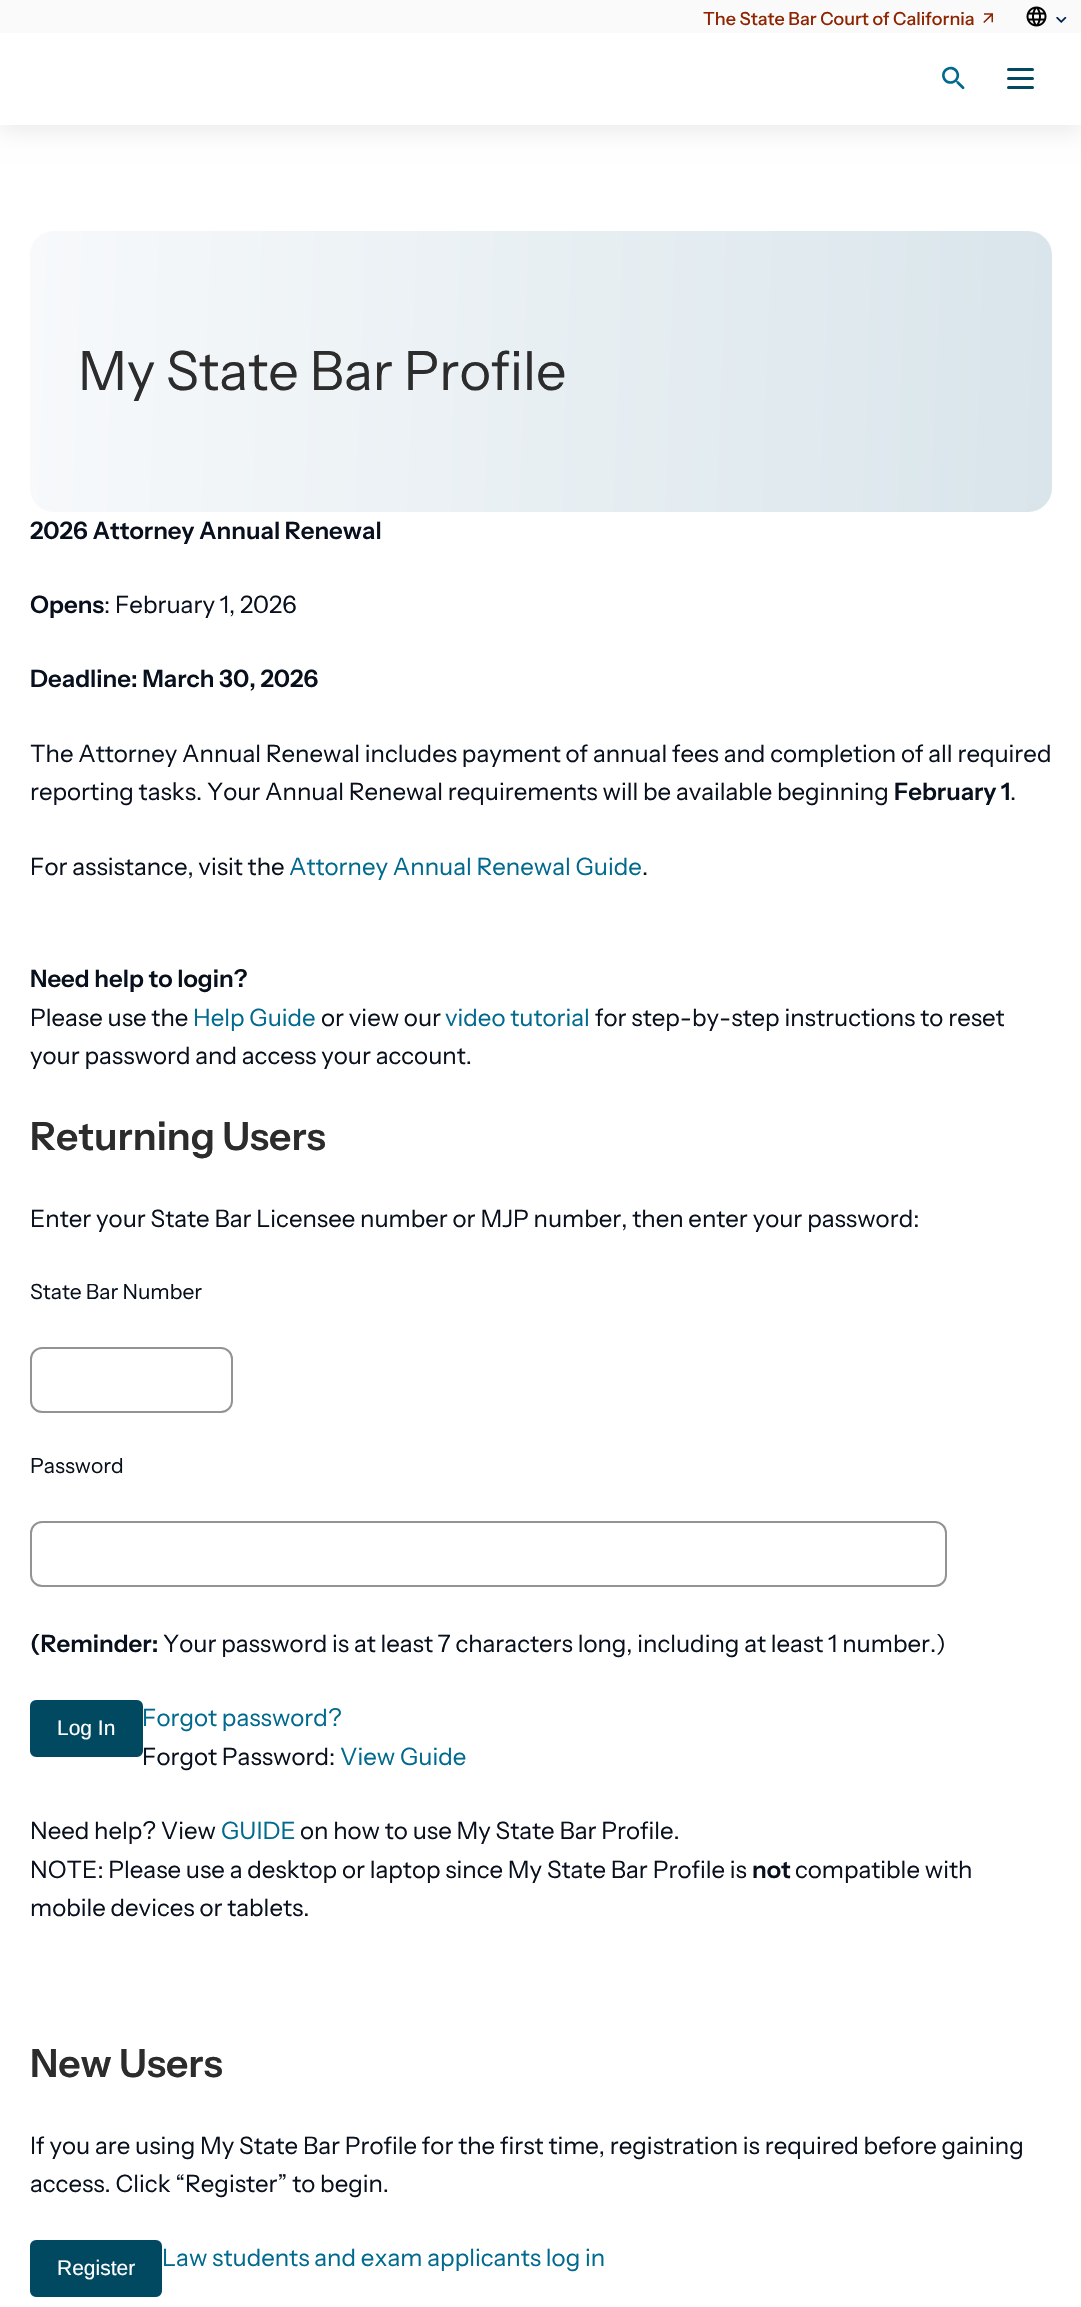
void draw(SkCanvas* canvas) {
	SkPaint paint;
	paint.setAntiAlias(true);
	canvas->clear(0xffffffff);
	paint.setColor(0x14000000);
	paint.setMaskFilter(SkMaskFilter::MakeBlur(kNormal_SkBlurStyle, 11));
	canvas->drawRect(SkRect::MakeXYWH(0, 41, 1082, 91), paint);
	paint.setMaskFilter(nullptr);
	paint.setColor(0xffffffff);
	canvas->drawRect(SkRect::MakeXYWH(0, 33, 1081, 92), paint);
	canvas->drawImageRect(SkImages::DeferredFromEncodedData(SkData::MakeFromFileName("img1.png")), SkRect::MakeXYWH(942, 66, 23, 24), SkSamplingOptions());
	paint.setColor(0xff004961);
	canvas->drawRoundRect(SkRect::MakeXYWH(1007, 77, 27, 3), 1.5, 1.5, paint);
	canvas->drawRoundRect(SkRect::MakeXYWH(1007, 68, 27, 3), 1.5, 1.5, paint);
	canvas->drawRoundRect(SkRect::MakeXYWH(1007, 86, 27, 3), 1.5, 1.5, paint);
	paint.setColor(0xfffafafa);
	canvas->drawRect(SkRect::MakeXYWH(0, 0, 1081, 33), paint);
	SkFont f1(fontMgr->matchFamilyStyle("Instrument Sans", SkFontStyle(500, SkFontStyle::kNormal_Width, SkFontStyle::kUpright_Slant)), 18);
	f1.setSubpixel(true);
	paint.setColor(0xff8e2400);
	canvas->drawString("The State Bar Court of California", 703, 25, f1, paint);
	canvas->drawImageRect(SkImages::DeferredFromEncodedData(SkData::MakeFromFileName("img2.png")), SkRect::MakeXYWH(983, 13, 10, 10), SkSamplingOptions());
	canvas->drawImageRect(SkImages::DeferredFromEncodedData(SkData::MakeFromFileName("img3.png")), SkRect::MakeXYWH(1026, 6, 21, 21), SkSamplingOptions());
	canvas->drawImageRect(SkImages::DeferredFromEncodedData(SkData::MakeFromFileName("img4.png")), SkRect::MakeXYWH(1056, 17, 11, 6), SkSamplingOptions());
	{
		const SkColor colors[] = {0xfff7f9fb, 0xffd9e5eb};
		const float stops[] = {0, 1};
		const SkPoint ends[] = {{26, 353}, {1056, 389}};
		paint.setShader(SkGradientShader::MakeLinear(ends, colors, stops, 2, SkTileMode::kClamp));
		paint.setAlpha(255);
	}
	canvas->drawRoundRect(SkRect::MakeXYWH(30, 231, 1022, 281), 24, 24, paint);
	SkFont f2(fontMgr->matchFamilyStyle("Instrument Sans", SkFontStyle::Normal()), 54);
	f2.setSubpixel(true);
	paint.setShader(nullptr);
	paint.setColor(0xff2c2c2c);
	canvas->drawString("My State Bar Profile", 78, 390, f2, paint);
	SkFont f3(fontMgr->matchFamilyStyle("Instrument Sans", SkFontStyle(600, SkFontStyle::kNormal_Width, SkFontStyle::kUpright_Slant)), 24);
	f3.setSubpixel(true);
	paint.setColor(0xff09101d);
	canvas->drawString("2026 Attorney Annual Renewal", 30, 539, f3, paint);
	canvas->drawString("Opens", 30, 613, f3, paint);
	SkFont f4(fontMgr->matchFamilyStyle("Instrument Sans", SkFontStyle::Normal()), 24);
	f4.setSubpixel(true);
	canvas->drawString(": February 1, 2026", 104, 613, f4, paint);
	canvas->drawString("Deadline: March 30, 2026", 30, 687, f3, paint);
	canvas->drawString("The Attorney Annual Renewal includes payment of annual fees and completion of all required", 30, 762, f4, paint);
	canvas->drawString("reporting tasks. Your Annual Renewal requirements will be available beginning", 30, 800, f4, paint);
	canvas->drawString("February 1", 894, 800, f3, paint);
	canvas->drawString(".", 1010, 800, f4, paint);
	canvas->drawString("For assistance, visit the", 30, 875, f4, paint);
	paint.setColor(0xff006a8e);
	canvas->drawString("Attorney Annual Renewal Guide", 289, 875, f4, paint);
	paint.setColor(0xff09101d);
	canvas->drawString(".", 642, 875, f4, paint);
	canvas->drawString("Need help to login?", 30, 987, f3, paint);
	canvas->drawString("Please use the", 30, 1026, f4, paint);
	paint.setColor(0xff006a8e);
	canvas->drawString("Help Guide", 193, 1026, f4, paint);
	paint.setColor(0xff09101d);
	canvas->drawString("or view our", 321, 1026, f4, paint);
	paint.setColor(0xff006a8e);
	canvas->drawString("video tutorial", 445, 1026, f4, paint);
	paint.setColor(0xff09101d);
	canvas->drawString("for step-by-step instructions to reset", 595, 1026, f4, paint);
	canvas->drawString("your password and access your account.", 30, 1064, f4, paint);
	SkFont f5(fontMgr->matchFamilyStyle("Instrument Sans", SkFontStyle(600, SkFontStyle::kNormal_Width, SkFontStyle::kUpright_Slant)), 39);
	f5.setSubpixel(true);
	paint.setColor(0xff2c2c2c);
	canvas->drawString("Returning Users", 30, 1150, f5, paint);
	paint.setColor(0xff09101d);
	canvas->drawString("Enter your State Bar Licensee number or MJP number, then enter your password:", 30, 1227, f4, paint);
	SkFont f6(fontMgr->matchFamilyStyle("Instrument Sans", SkFontStyle::Normal()), 21);
	f6.setSubpixel(true);
	canvas->drawString("State Bar Number", 30, 1299, f6, paint);
	paint.setStroke(true);
	paint.setStrokeWidth(2);
	paint.setColor(0xff939393);
	canvas->drawRoundRect(SkRect::MakeXYWH(31, 1348, 201, 64), 11, 11, paint);
	paint.setStroke(false);
	paint.setColor(0xff09101d);
	canvas->drawString("Password", 30, 1473, f6, paint);
	paint.setStroke(true);
	paint.setColor(0xff939393);
	canvas->drawRoundRect(SkRect::MakeXYWH(31, 1522, 915, 64), 11, 11, paint);
	paint.setStroke(false);
	paint.setColor(0xff09101d);
	canvas->drawString("(Reminder:", 30, 1652, f3, paint);
	canvas->drawString("Your password is at least 7 characters long, including at least 1 number.)", 163, 1652, f4, paint);
	paint.setColor(0xff004961);
	canvas->drawRoundRect(SkRect::MakeXYWH(31.5, 1701.5, 110, 54), 4.5, 4.5, paint);
	paint.setStroke(true);
	paint.setStrokeWidth(3);
	canvas->drawRoundRect(SkRect::MakeXYWH(31.5, 1701.5, 110, 54), 4.5, 4.5, paint);
	SkFont f7(fontMgr->matchFamilyStyle("Liberation Sans", SkFontStyle::Normal()), 21);
	f7.setSubpixel(true);
	paint.setStroke(false);
	paint.setColor(0xffffffff);
	canvas->drawString("Log In", 57, 1735, f7, paint);
	paint.setColor(0xff006a8e);
	canvas->drawString("Forgot password?", 142, 1726, f4, paint);
	paint.setColor(0xff09101d);
	canvas->drawString("Forgot Password:", 142, 1765, f4, paint);
	paint.setColor(0xff006a8e);
	canvas->drawString("View Guide", 340, 1765, f4, paint);
	paint.setColor(0xff09101d);
	canvas->drawString("Need help? View", 30, 1839, f4, paint);
	paint.setColor(0xff006a8e);
	canvas->drawString("GUIDE", 221, 1839, f4, paint);
	paint.setColor(0xff09101d);
	canvas->drawString("on how to use My State Bar Profile.", 300, 1839, f4, paint);
	canvas->drawString("NOTE: Please use a desktop or laptop since My State Bar Profile is", 30, 1878, f4, paint);
	canvas->drawString("not", 752, 1878, f3, paint);
	canvas->drawString("compatible with", 795, 1878, f4, paint);
	canvas->drawString("mobile devices or tablets.", 30, 1916, f4, paint);
	paint.setColor(0xff2c2c2c);
	canvas->drawString("New Users", 30, 2077, f5, paint);
	paint.setColor(0xff09101d);
	canvas->drawString("If you are using My State Bar Profile for the first time, registration is required before gaining", 30, 2154, f4, paint);
	canvas->drawString("access. Click “Register” to begin.", 30, 2192, f4, paint);
	paint.setColor(0xff004961);
	canvas->drawRoundRect(SkRect::MakeXYWH(31.5, 2241.5, 129, 54), 4.5, 4.5, paint);
	paint.setStroke(true);
	canvas->drawRoundRect(SkRect::MakeXYWH(31.5, 2241.5, 129, 54), 4.5, 4.5, paint);
	paint.setStroke(false);
	paint.setColor(0xffffffff);
	canvas->drawString("Register", 57, 2275, f7, paint);
	paint.setColor(0xff006a8e);
	canvas->drawString("Law students and exam applicants log in", 162, 2266, f4, paint);
}
